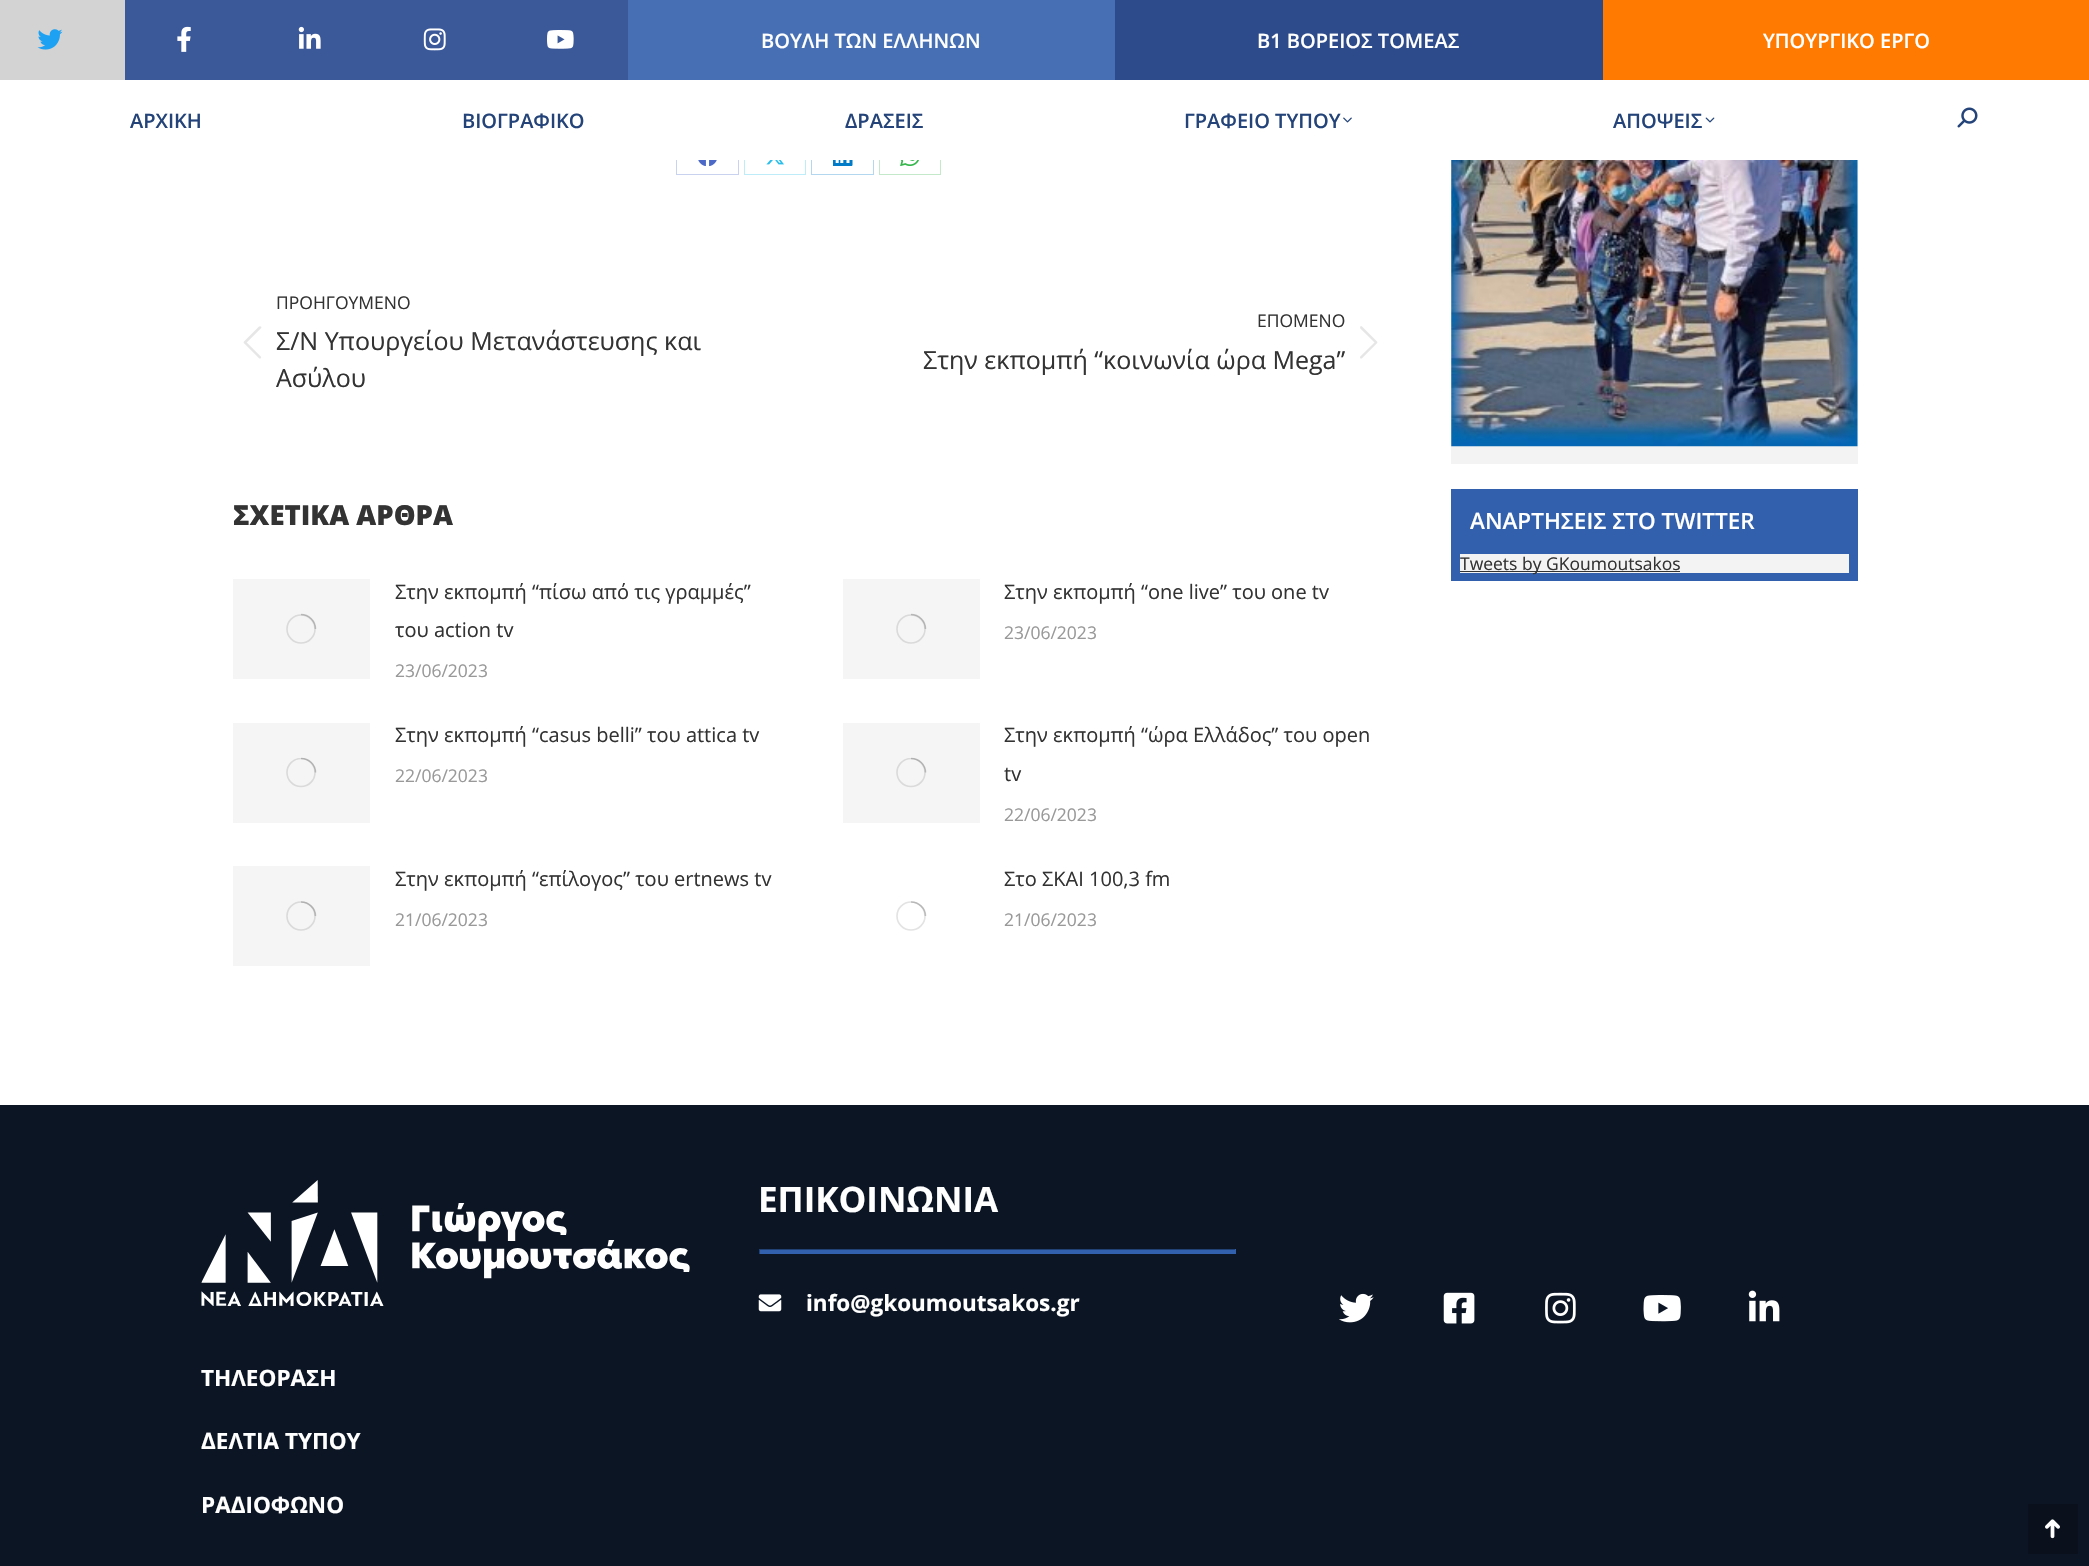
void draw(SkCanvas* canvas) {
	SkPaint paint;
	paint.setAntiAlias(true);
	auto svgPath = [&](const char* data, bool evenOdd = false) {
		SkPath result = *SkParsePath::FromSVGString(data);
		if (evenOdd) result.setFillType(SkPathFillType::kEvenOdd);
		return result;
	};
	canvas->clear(0xffffffff);
	paint.setColor(0xffd3d3d3);
	canvas->drawRect(SkRect::MakeXYWH(0, 0, 125, 80), paint);
	canvas->drawImageRect(SkImages::DeferredFromEncodedData(SkData::MakeFromFileName("img1.png")), SkRect::MakeXYWH(37, 29, 26, 21), SkSamplingOptions());
	paint.setColor(0xff3b5998);
	canvas->drawRect(SkRect::MakeXYWH(125, 0, 503, 80), paint);
	canvas->drawImageRect(SkImages::DeferredFromEncodedData(SkData::MakeFromFileName("img2.png")), SkRect::MakeXYWH(177, 26, 14, 26), SkSamplingOptions());
	canvas->drawImageRect(SkImages::DeferredFromEncodedData(SkData::MakeFromFileName("img3.png")), SkRect::MakeXYWH(298, 26, 23, 23), SkSamplingOptions());
	canvas->drawImageRect(SkImages::DeferredFromEncodedData(SkData::MakeFromFileName("img4.png")), SkRect::MakeXYWH(423, 28, 23, 23), SkSamplingOptions());
	canvas->drawImageRect(SkImages::DeferredFromEncodedData(SkData::MakeFromFileName("img5.png")), SkRect::MakeXYWH(547, 30, 27, 19), SkSamplingOptions());
	paint.setColor(0xff4770b4);
	canvas->drawRect(SkRect::MakeXYWH(628, 0, 487, 80), paint);
	SkFont f1(fontMgr->matchFamilyStyle("Open Sans", SkFontStyle(600, SkFontStyle::kNormal_Width, SkFontStyle::kUpright_Slant)), 20);
	f1.setSubpixel(true);
	paint.setColor(0xffffffff);
	canvas->drawString("ΒΟΥΛΗ ΤΩΝ ΕΛΛΗΝΩΝ", 761, 48, f1, paint);
	paint.setColor(0xff2d4b8a);
	canvas->drawRect(SkRect::MakeXYWH(1115, 0, 488, 80), paint);
	paint.setColor(0xffffffff);
	canvas->drawString("Β1 ΒΟΡΕΙΟΣ ΤΟΜΕΑΣ", 1257, 48, f1, paint);
	paint.setColor(0xffff7a00);
	canvas->drawRect(SkRect::MakeXYWH(1603, 0, 486, 80), paint);
	paint.setColor(0xffffffff);
	canvas->drawString("ΥΠΟΥΡΓΙΚΟ ΕΡΓΟ", 1763, 48, f1, paint);
	paint.setColor(0xff244479);
	canvas->drawString("ΑΡΧΙΚΗ", 130, 128, f1, paint);
	canvas->drawString("ΒΙΟΓΡΑΦΙΚΟ", 462, 128, f1, paint);
	canvas->drawString("ΔΡΑΣΕΙΣ", 845, 128, f1, paint);
	canvas->drawString("ΓΡΑΦΕΙΟ ΤΥΠΟΥ", 1184, 128, f1, paint);
	canvas->drawImageRect(SkImages::DeferredFromEncodedData(SkData::MakeFromFileName("img6.png")), SkRect::MakeXYWH(1343, 117, 9, 6), SkSamplingOptions());
	canvas->drawString("ΑΠΟΨΕΙΣ", 1613, 128, f1, paint);
	canvas->drawImageRect(SkImages::DeferredFromEncodedData(SkData::MakeFromFileName("img7.png")), SkRect::MakeXYWH(1705, 117, 10, 6), SkSamplingOptions());
	canvas->drawImageRect(SkImages::DeferredFromEncodedData(SkData::MakeFromFileName("img8.png")), SkRect::MakeXYWH(1957, 107, 21, 21), SkSamplingOptions());
	paint.setStroke(true);
	paint.setStrokeWidth(1);
	paint.setColor(0xffc9d2ee);
	canvas->drawRect(SkRect::MakeXYWH(676.5, 138.5, 62, 36), paint);
	paint.setColor(0xffbfecf9);
	canvas->drawRect(SkRect::MakeXYWH(744.5, 138.5, 61, 36), paint);
	paint.setColor(0xffb3d7ee);
	canvas->drawRect(SkRect::MakeXYWH(811.5, 138.5, 62, 36), paint);
	paint.setColor(0xffc3e9ca);
	canvas->drawRect(SkRect::MakeXYWH(879.5, 138.5, 61, 36), paint);
	paint.setStroke(false);
	paint.setColor(0xffffffff);
	canvas->drawRect(SkRect::MakeXYWH(676, 138, 265, 22), paint);
	canvas->drawImageRect(SkImages::DeferredFromEncodedData(SkData::MakeFromFileName("img9.png")), SkRect::MakeXYWH(698, 160, 19, 6), SkSamplingOptions());
	canvas->drawImageRect(SkImages::DeferredFromEncodedData(SkData::MakeFromFileName("img10.png")), SkRect::MakeXYWH(766, 160, 18, 5), SkSamplingOptions());
	canvas->drawImageRect(SkImages::DeferredFromEncodedData(SkData::MakeFromFileName("img11.png")), SkRect::MakeXYWH(833, 160, 20, 6), SkSamplingOptions());
	canvas->drawImageRect(SkImages::DeferredFromEncodedData(SkData::MakeFromFileName("img12.png")), SkRect::MakeXYWH(900, 160, 19, 6), SkSamplingOptions());
	SkFont f2(fontMgr->matchFamilyStyle("Open Sans", SkFontStyle::Normal()), 17.5);
	f2.setSubpixel(true);
	paint.setColor(0xff333333);
	canvas->drawString("ΠΡΟΗΓΟΥΜΕΝΟ", 276, 309, f2, paint);
	canvas->drawImageRect(SkImages::DeferredFromEncodedData(SkData::MakeFromFileName("img13.png")), SkRect::MakeXYWH(243, 326, 19, 33), SkSamplingOptions());
	SkFont f3(fontMgr->matchFamilyStyle("Open Sans", SkFontStyle::Normal()), 25);
	f3.setSubpixel(true);
	canvas->drawString("Σ/Ν Υπουργείου Μετανάστευσης και", 276, 350, f3, paint);
	canvas->drawString("Ασύλου", 276, 387, f3, paint);
	canvas->drawString("ΕΠΟΜΕΝΟ", 1257, 327, f2, paint);
	canvas->drawString("Στην εκπομπή “κοινωνία ώρα Mega”", 923, 369, f3, paint);
	canvas->drawImageRect(SkImages::DeferredFromEncodedData(SkData::MakeFromFileName("img14.png")), SkRect::MakeXYWH(1360, 326, 18, 33), SkSamplingOptions());
	SkFont f4(fontMgr->matchFamilyStyle("Open Sans", SkFontStyle(800, SkFontStyle::kNormal_Width, SkFontStyle::kUpright_Slant)), 27.5);
	f4.setSubpixel(true);
	canvas->drawString("ΣΧΕΤΙΚΑ ΑΡΘΡΑ", 233, 525, f4, paint);
	paint.setColor(0xfff5f5f5);
	canvas->drawRect(SkRect::MakeXYWH(233, 579, 137, 100), paint);
	paint.setStroke(true);
	paint.setStrokeWidth(1.6);
	paint.setColor(0xffdadada);
	canvas->drawCircle(301, 629, 14, paint);
	paint.setColor(0x40333333);
	canvas->drawPath(svgPath("M315.5 629C315.5 621 309 614.5 301 614.5"), paint);
	SkFont f5(fontMgr->matchFamilyStyle("Open Sans", SkFontStyle::Normal()), 20);
	f5.setSubpixel(true);
	paint.setStroke(false);
	paint.setColor(0xff333333);
	canvas->drawString("Στην εκπομπή “πίσω από τις γραμμές”", 395, 599, f5, paint);
	canvas->drawString("του action tv", 395, 637, f5, paint);
	paint.setColor(0xff999999);
	canvas->drawString("23/06/2023", 395, 677, f2, paint);
	paint.setColor(0xfff5f5f5);
	canvas->drawRect(SkRect::MakeXYWH(843, 579, 137, 100), paint);
	paint.setStroke(true);
	paint.setColor(0xffdadada);
	canvas->drawCircle(911, 629, 14, paint);
	paint.setColor(0x40333333);
	canvas->drawPath(svgPath("M925.5 629C925.5 621 919 614.5 911 614.5"), paint);
	paint.setStroke(false);
	paint.setColor(0xff333333);
	canvas->drawString("Στην εκπομπή “one live” του one tv", 1004, 599, f5, paint);
	paint.setColor(0xff999999);
	canvas->drawString("23/06/2023", 1004, 639, f2, paint);
	paint.setColor(0xfff5f5f5);
	canvas->drawRect(SkRect::MakeXYWH(233, 723, 137, 100), paint);
	canvas->save();
	canvas->clipRect(SkRect::MakeXYWH(286, 758, 30, 30));
	paint.setStroke(true);
	paint.setColor(0xffdadada);
	canvas->drawCircle(301, 772.5, 14, paint);
	canvas->restore();
	paint.setColor(0x40333333);
	canvas->drawPath(svgPath("M315.5 772.5C315.5 764.5 309 758.5 301 758.5"), paint);
	paint.setStroke(false);
	paint.setColor(0xff333333);
	canvas->drawString("Στην εκπομπή “casus belli” του attica tv", 395, 742, f5, paint);
	paint.setColor(0xff999999);
	canvas->drawString("22/06/2023", 395, 782, f2, paint);
	paint.setColor(0xfff5f5f5);
	canvas->drawRect(SkRect::MakeXYWH(843, 723, 137, 100), paint);
	canvas->save();
	canvas->clipRect(SkRect::MakeXYWH(896, 758, 30, 30));
	paint.setStroke(true);
	paint.setColor(0xffdadada);
	canvas->drawCircle(911, 772.5, 14, paint);
	canvas->restore();
	paint.setColor(0x40333333);
	canvas->drawPath(svgPath("M925.5 772.5C925.5 764.5 919 758.5 911 758.5"), paint);
	paint.setStroke(false);
	paint.setColor(0xff333333);
	canvas->drawString("Στην εκπομπή “ώρα Ελλάδος” του open", 1004, 742, f5, paint);
	canvas->drawString("tv", 1004, 781, f5, paint);
	paint.setColor(0xff999999);
	canvas->drawString("22/06/2023", 1004, 821, f2, paint);
	paint.setColor(0xfff5f5f5);
	canvas->drawRect(SkRect::MakeXYWH(233, 866, 137, 100), paint);
	paint.setStroke(true);
	paint.setColor(0xffdadada);
	canvas->drawCircle(301, 916, 14, paint);
	paint.setColor(0x40333333);
	canvas->drawPath(svgPath("M315.5 916C315.5 908.5 309 902 301 902"), paint);
	paint.setStroke(false);
	paint.setColor(0xff333333);
	canvas->drawString("Στην εκπομπή “επίλογος” του ertnews tv", 395, 886, f5, paint);
	paint.setColor(0xff999999);
	canvas->drawString("21/06/2023", 395, 926, f2, paint);
	paint.setStroke(true);
	paint.setColor(0xffe3e3e3);
	canvas->drawCircle(911, 916, 14, paint);
	paint.setColor(0x40333333);
	canvas->drawPath(svgPath("M925.5 916C925.5 908.5 919 902 911 902"), paint);
	paint.setStroke(false);
	paint.setColor(0xff333333);
	canvas->drawString("Στο ΣΚΑΙ 100,3 fm", 1004, 886, f5, paint);
	paint.setColor(0xff999999);
	canvas->drawString("21/06/2023", 1004, 926, f2, paint);
	paint.setColor(0xfff3f3f3);
	canvas->drawRect(SkRect::MakeXYWH(1451, 160, 407, 304), paint);
	canvas->drawImageRect(SkImages::DeferredFromEncodedData(SkData::MakeFromFileName("img15.png")), SkRect::MakeXYWH(1451, 160, 407, 287), SkSamplingOptions());
	paint.setColor(0xff3260ac);
	canvas->drawRect(SkRect::MakeXYWH(1451, 489, 407, 92), paint);
	SkFont f6(fontMgr->matchFamilyStyle("Open Sans", SkFontStyle(600, SkFontStyle::kNormal_Width, SkFontStyle::kUpright_Slant)), 22.5);
	f6.setSubpixel(true);
	paint.setColor(0xffffffff);
	canvas->drawString("ΑΝΑΡΤΗΣΕΙΣ ΣΤΟ TWITTER", 1470, 529, f6, paint);
	paint.setColor(0xfff3f3f3);
	canvas->drawRect(SkRect::MakeXYWH(1460, 554, 389, 19), paint);
	paint.setColor(0xff333333);
	canvas->drawRect(SkRect::MakeXYWH(1460, 571, 220, 1), paint);
	canvas->drawString("Tweets by GKoumoutsakos", 1460, 570, f2, paint);
	paint.setColor(0xff0c1524);
	canvas->drawRect(SkRect::MakeXYWH(0, 1105, 2089, 461), paint);
	SkFont f7(fontMgr->matchFamilyStyle("Open Sans", SkFontStyle::Bold()), 35);
	f7.setSubpixel(true);
	paint.setColor(0xffffffff);
	canvas->drawString("ΕΠΙΚΟΙΝΩΝΙΑ", 758, 1212, f7, paint);
	paint.setColor(0xff3260ac);
	canvas->drawRect(SkRect::MakeXYWH(759, 1250, 477, 4), paint);
	paint.setColor(0xff214073);
	canvas->drawRect(SkRect::MakeXYWH(759, 1249, 477, 1), paint);
	paint.setColor(0xff3260ac);
	canvas->drawRect(SkRect::MakeXYWH(1235, 1249, 1, 5), paint);
	paint.setColor(0xff214073);
	canvas->drawRect(SkRect::MakeXYWH(759, 1249, 1, 5), paint);
	canvas->drawImageRect(SkImages::DeferredFromEncodedData(SkData::MakeFromFileName("img16.png")), SkRect::MakeXYWH(758, 1294, 24, 18), SkSamplingOptions());
	SkFont f8(fontMgr->matchFamilyStyle("Open Sans", SkFontStyle::Bold()), 22.5);
	f8.setSubpixel(true);
	paint.setColor(0xffffffff);
	canvas->drawString("info@gkoumoutsakos.gr", 806, 1311, f8, paint);
	canvas->drawImageRect(SkImages::DeferredFromEncodedData(SkData::MakeFromFileName("img17.png")), SkRect::MakeXYWH(1339, 1293, 35, 30), SkSamplingOptions());
	canvas->drawImageRect(SkImages::DeferredFromEncodedData(SkData::MakeFromFileName("img18.png")), SkRect::MakeXYWH(1443, 1292, 32, 32), SkSamplingOptions());
	canvas->drawImageRect(SkImages::DeferredFromEncodedData(SkData::MakeFromFileName("img19.png")), SkRect::MakeXYWH(1545, 1292, 31, 32), SkSamplingOptions());
	canvas->drawImageRect(SkImages::DeferredFromEncodedData(SkData::MakeFromFileName("img20.png")), SkRect::MakeXYWH(1643, 1295, 38, 27), SkSamplingOptions());
	canvas->drawImageRect(SkImages::DeferredFromEncodedData(SkData::MakeFromFileName("img21.png")), SkRect::MakeXYWH(1748, 1290, 32, 32), SkSamplingOptions());
	canvas->drawImageRect(SkImages::DeferredFromEncodedData(SkData::MakeFromFileName("img22.png")), SkRect::MakeXYWH(201, 1180, 489, 126), SkSamplingOptions());
	canvas->drawString("ΤΗΛΕΟΡΑΣΗ", 201, 1386, f8, paint);
	canvas->drawString("ΔΕΛΤΙΑ ΤΥΠΟΥ", 201, 1449, f8, paint);
	canvas->drawString("ΡΑΔΙΟΦΩΝΟ", 201, 1513, f8, paint);
	paint.setColor(0xff0a111d);
	canvas->drawRect(SkRect::MakeXYWH(2028, 1504, 50, 50), paint);
	canvas->drawImageRect(SkImages::DeferredFromEncodedData(SkData::MakeFromFileName("img23.png")), SkRect::MakeXYWH(2045, 1519, 15, 20), SkSamplingOptions());
}
